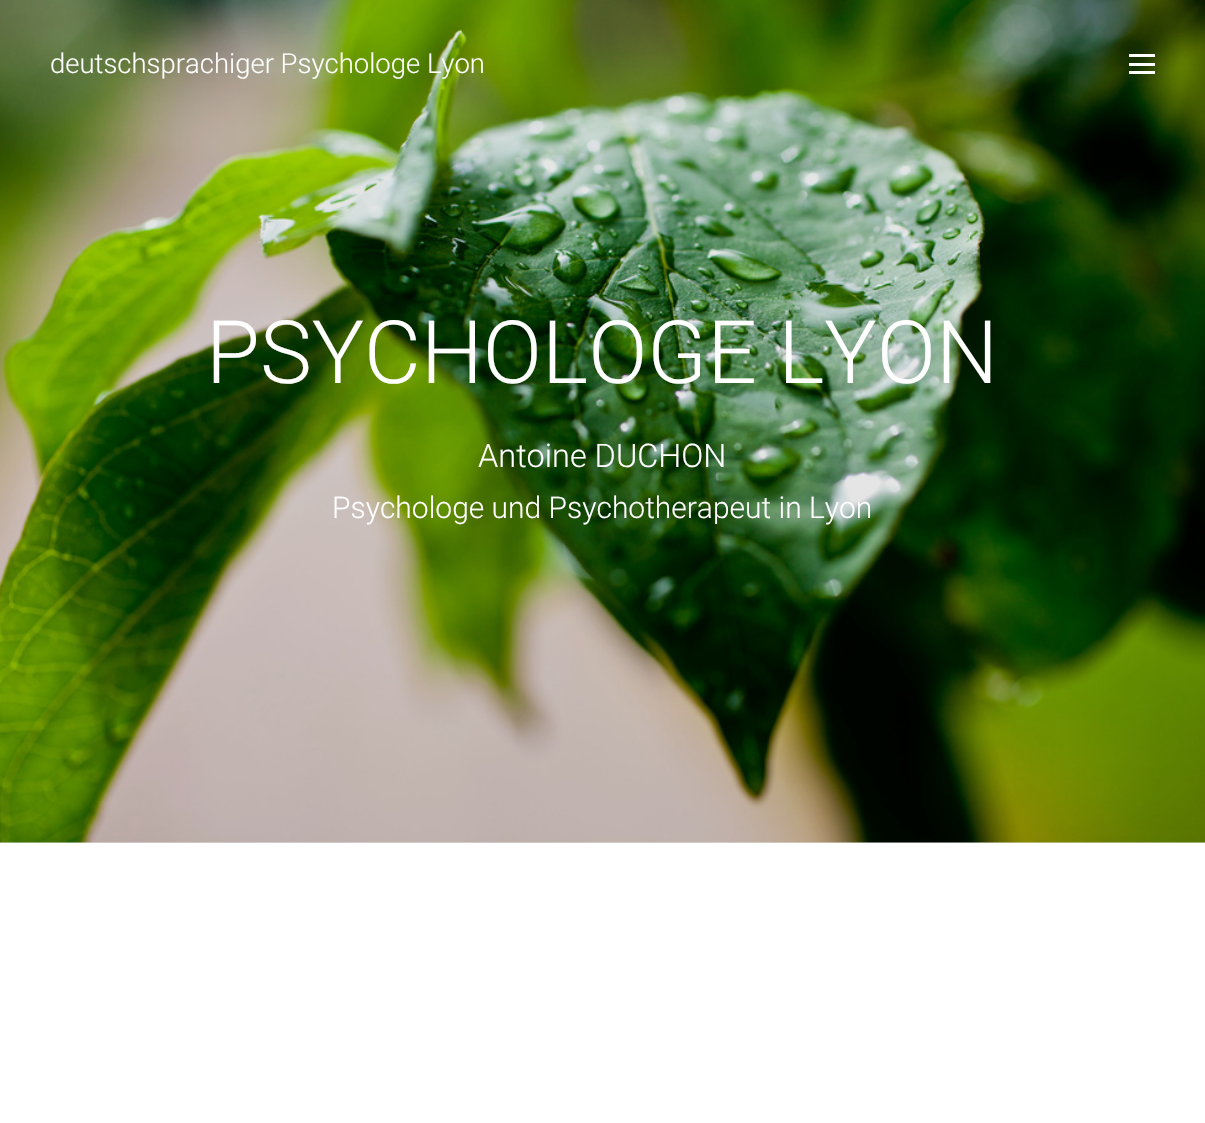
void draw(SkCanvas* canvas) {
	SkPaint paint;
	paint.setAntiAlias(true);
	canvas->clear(0xffffffff);
	paint.setColor(0xffe6e6e6);
	canvas->drawRect(SkRect::MakeXYWH(0, 842, 1205, 1), paint);
	canvas->drawImageRect(SkImages::DeferredFromEncodedData(SkData::MakeFromFileName("img1.png")), SkRect::MakeXYWH(0, 0, 1205, 843), SkSamplingOptions());
	SkFont f1(fontMgr->matchFamilyStyle("Roboto", SkFontStyle(300, SkFontStyle::kNormal_Width, SkFontStyle::kUpright_Slant)), 27.5);
	f1.setSubpixel(true);
	paint.setColor(0xffffffff);
	canvas->drawString("deutschsprachiger Psychologe Lyon", 50, 73, f1, paint);
	canvas->drawRect(SkRect::MakeXYWH(1129, 54, 26, 3), paint);
	canvas->drawRect(SkRect::MakeXYWH(1129, 63, 26, 3), paint);
	canvas->drawRect(SkRect::MakeXYWH(1129, 71, 26, 3), paint);
	SkFont f2(fontMgr->matchFamilyStyle("Roboto", SkFontStyle(300, SkFontStyle::kNormal_Width, SkFontStyle::kUpright_Slant)), 87.5);
	f2.setSubpixel(true);
	canvas->drawString("PSYCHOLOGE LYON", 206, 383, f2, paint);
	SkFont f3(fontMgr->matchFamilyStyle("Roboto", SkFontStyle(300, SkFontStyle::kNormal_Width, SkFontStyle::kUpright_Slant)), 32.5);
	f3.setSubpixel(true);
	canvas->drawString("Antoine DUCHON", 478, 467, f3, paint);
	SkFont f4(fontMgr->matchFamilyStyle("Roboto", SkFontStyle(300, SkFontStyle::kNormal_Width, SkFontStyle::kUpright_Slant)), 30);
	f4.setSubpixel(true);
	canvas->drawString("Psychologe und Psychotherapeut in Lyon", 332, 518, f4, paint);
}
